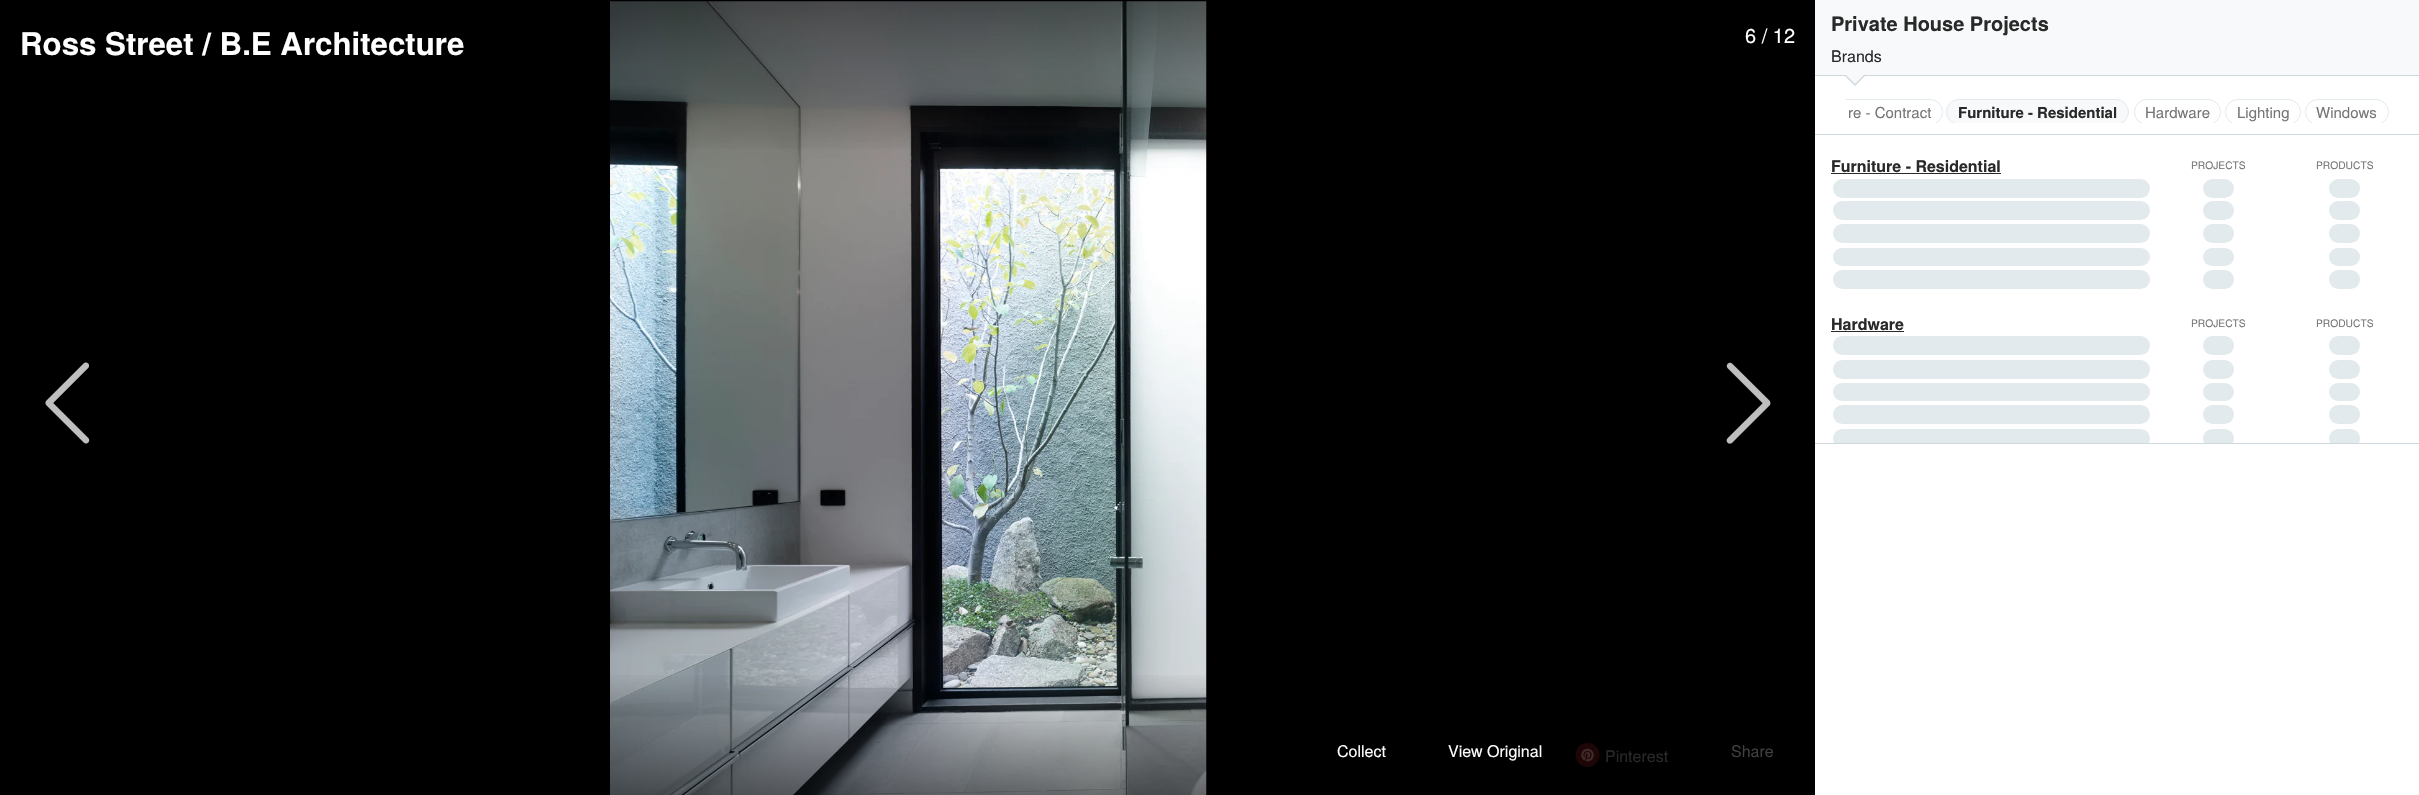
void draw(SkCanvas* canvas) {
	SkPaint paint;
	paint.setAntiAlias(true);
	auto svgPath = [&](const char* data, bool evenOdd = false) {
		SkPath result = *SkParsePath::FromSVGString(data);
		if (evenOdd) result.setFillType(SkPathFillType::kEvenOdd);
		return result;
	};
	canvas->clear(0xffffffff);
	paint.setColor(0xff000000);
	canvas->drawRect(SkRect::MakeXYWH(0, 0, 1815, 795), paint);
	canvas->drawImageRect(SkImages::DeferredFromEncodedData(SkData::MakeFromFileName("img1.png")), SkRect::MakeXYWH(610, 1, 597, 794), SkSamplingOptions());
	SkFont f1(fontMgr->matchFamilyStyle("TeX Gyre Heros", SkFontStyle::Bold()), 31.25);
	f1.setSubpixel(true);
	paint.setColor(0xffffffff);
	canvas->drawString("Ross Street / B.E Architecture", 20, 55, f1, paint);
	{
		const SkColor colors[] = {0x80000000, 0x00000000};
		const float stops[] = {0, 1};
		const SkPoint ends[] = {{908, 0}, {908, 156}};
		paint.setShader(SkGradientShader::MakeLinear(ends, colors, stops, 2, SkTileMode::kClamp));
		paint.setAlpha(255);
	}
	canvas->drawRect(SkRect::MakeXYWH(610, 1, 597, 148), paint);
	SkFont f2(fontMgr->matchFamilyStyle("TeX Gyre Heros", SkFontStyle::Normal()), 20);
	f2.setSubpixel(true);
	paint.setShader(nullptr);
	paint.setColor(0xffffffff);
	canvas->drawString("6 / 12", 1745, 43, f2, paint);
	canvas->drawImageRect(SkImages::DeferredFromEncodedData(SkData::MakeFromFileName("img2.png")), SkRect::MakeXYWH(45, 362, 45, 82), SkSamplingOptions());
	canvas->drawImageRect(SkImages::DeferredFromEncodedData(SkData::MakeFromFileName("img3.png")), SkRect::MakeXYWH(1726, 362, 45, 82), SkSamplingOptions());
	{
		const SkColor colors[] = {0x80000000, 0x00000000};
		const float stops[] = {0, 1};
		const SkPoint ends[] = {{908, 795}, {908, 670}};
		paint.setShader(SkGradientShader::MakeLinear(ends, colors, stops, 2, SkTileMode::kClamp));
		paint.setAlpha(255);
	}
	canvas->drawRect(SkRect::MakeXYWH(610, 675, 597, 120), paint);
	SkFont f3(fontMgr->matchFamilyStyle("TeX Gyre Heros", SkFontStyle::Normal()), 16);
	f3.setSubpixel(true);
	paint.setShader(nullptr);
	paint.setColor(0xffffffff);
	canvas->drawString("Collect", 1337, 757, f3, paint);
	canvas->drawString("View Original", 1448, 757, f3, paint);
	canvas->drawImageRect(SkImages::DeferredFromEncodedData(SkData::MakeFromFileName("img4.png")), SkRect::MakeXYWH(1575, 743, 25, 24), SkSamplingOptions());
	paint.setColor(0xff292929);
	canvas->drawString("Pinterest", 1605, 762, f3, paint);
	paint.setColor(0xff404040);
	canvas->drawString("Share", 1731, 757, f3, paint);
	paint.setColor(0xfff7f9fa);
	canvas->drawRect(SkRect::MakeXYWH(1815, 0, 604, 75), paint);
	paint.setColor(0xffced9df);
	canvas->drawRect(SkRect::MakeXYWH(1815, 75, 604, 1), paint);
	SkFont f4(fontMgr->matchFamilyStyle("TeX Gyre Heros", SkFontStyle::Bold()), 20);
	f4.setSubpixel(true);
	paint.setColor(0xff292929);
	canvas->drawString("Private House Projects", 1831, 31, f4, paint);
	canvas->drawString("Brands", 1831, 62, f3, paint);
	paint.setColor(0xffced9df);
	canvas->drawPath(svgPath("M1844 75H1866L1855 86Z"), paint);
	paint.setColor(0xfff7f9fa);
	canvas->drawPath(svgPath("M1845 74H1865L1855 84Z"), paint);
	canvas->save();
	canvas->clipRect(SkRect::MakeXYWH(1846, 91, 543, 32));
	paint.setStroke(true);
	paint.setStrokeWidth(1);
	paint.setColor(0xffe3eaed);
	canvas->drawRoundRect(SkRect::MakeXYWH(1790.5, 99.5, 152, 25), 12.5, 12.5, paint);
	canvas->restore();
	SkFont f5(fontMgr->matchFamilyStyle("TeX Gyre Heros", SkFontStyle::Normal()), 15);
	f5.setSubpixel(true);
	paint.setStroke(false);
	paint.setColor(0xff757575);
	canvas->drawString("re - Contract", 1848, 118, f5, paint);
	canvas->save();
	canvas->clipRect(SkRect::MakeXYWH(1846, 91, 543, 32));
	paint.setColor(0xfff7f9fa);
	canvas->drawRoundRect(SkRect::MakeXYWH(1946.5, 99.5, 182, 25), 12.5, 12.5, paint);
	paint.setStroke(true);
	paint.setColor(0xffe3eaed);
	canvas->drawRoundRect(SkRect::MakeXYWH(1946.5, 99.5, 182, 25), 12.5, 12.5, paint);
	canvas->restore();
	SkFont f6(fontMgr->matchFamilyStyle("TeX Gyre Heros", SkFontStyle::Bold()), 15);
	f6.setSubpixel(true);
	paint.setStroke(false);
	paint.setColor(0xff292929);
	canvas->drawString("Furniture - Residential", 1958, 118, f6, paint);
	canvas->save();
	canvas->clipRect(SkRect::MakeXYWH(1846, 91, 543, 32));
	paint.setStroke(true);
	paint.setColor(0xffe3eaed);
	canvas->drawRoundRect(SkRect::MakeXYWH(2134.5, 99.5, 86, 25), 12.5, 12.5, paint);
	canvas->restore();
	paint.setStroke(false);
	paint.setColor(0xff757575);
	canvas->drawString("Hardware", 2145, 118, f5, paint);
	canvas->save();
	canvas->clipRect(SkRect::MakeXYWH(1846, 91, 543, 32));
	paint.setStroke(true);
	paint.setColor(0xffe3eaed);
	canvas->drawRoundRect(SkRect::MakeXYWH(2225.5, 99.5, 75, 25), 12.5, 12.5, paint);
	canvas->restore();
	paint.setStroke(false);
	paint.setColor(0xff757575);
	canvas->drawString("Lighting", 2237, 118, f5, paint);
	canvas->save();
	canvas->clipRect(SkRect::MakeXYWH(1846, 91, 543, 32));
	paint.setStroke(true);
	paint.setColor(0xffe3eaed);
	canvas->drawRoundRect(SkRect::MakeXYWH(2305.5, 99.5, 83, 25), 12.5, 12.5, paint);
	canvas->restore();
	paint.setStroke(false);
	paint.setColor(0xff757575);
	canvas->drawString("Windows", 2316, 118, f5, paint);
	paint.setColor(0xffced9df);
	canvas->drawRect(SkRect::MakeXYWH(1815, 134, 604, 1), paint);
	SkFont f7(fontMgr->matchFamilyStyle("TeX Gyre Heros", SkFontStyle::Bold()), 16);
	f7.setSubpixel(true);
	paint.setColor(0xff292929);
	canvas->drawString("Furniture - Residential", 1831, 172, f7, paint);
	canvas->drawRect(SkRect::MakeXYWH(1831, 173, 170, 1), paint);
	SkFont f8(fontMgr->matchFamilyStyle("TeX Gyre Heros", SkFontStyle::Normal()), 10.25);
	f8.setSubpixel(true);
	paint.setColor(0xff757575);
	canvas->drawString("PROJECTS", 2191, 169, f8, paint);
	canvas->drawString("PRODUCTS", 2316, 169, f8, paint);
	paint.setColor(0xffe3eaed);
	canvas->drawRoundRect(SkRect::MakeXYWH(1833, 179, 317, 19), 9.5, 9.5, paint);
	canvas->drawRoundRect(SkRect::MakeXYWH(2203, 179, 31, 19), 9.5, 9.5, paint);
	canvas->drawRoundRect(SkRect::MakeXYWH(2329, 179, 31, 19), 9.5, 9.5, paint);
	canvas->drawRoundRect(SkRect::MakeXYWH(1833, 201, 317, 19), 9.5, 9.5, paint);
	canvas->drawRoundRect(SkRect::MakeXYWH(2203, 201, 31, 19), 9.5, 9.5, paint);
	canvas->drawRoundRect(SkRect::MakeXYWH(2329, 201, 31, 19), 9.5, 9.5, paint);
	canvas->drawRoundRect(SkRect::MakeXYWH(1833, 224, 317, 19), 9.5, 9.5, paint);
	canvas->drawRoundRect(SkRect::MakeXYWH(2203, 224, 31, 19), 9.5, 9.5, paint);
	canvas->drawRoundRect(SkRect::MakeXYWH(2329, 224, 31, 19), 9.5, 9.5, paint);
	canvas->drawRoundRect(SkRect::MakeXYWH(1833, 248, 317, 18), 9, 9, paint);
	canvas->drawRoundRect(SkRect::MakeXYWH(2203, 248, 31, 18), 9, 9, paint);
	canvas->drawRoundRect(SkRect::MakeXYWH(2329, 248, 31, 18), 9, 9, paint);
	canvas->drawRoundRect(SkRect::MakeXYWH(1833, 270, 317, 19), 9.5, 9.5, paint);
	canvas->drawRoundRect(SkRect::MakeXYWH(2203, 270, 31, 19), 9.5, 9.5, paint);
	canvas->drawRoundRect(SkRect::MakeXYWH(2329, 270, 31, 19), 9.5, 9.5, paint);
	paint.setColor(0xff292929);
	canvas->drawString("Hardware", 1831, 330, f7, paint);
	canvas->drawRect(SkRect::MakeXYWH(1831, 331, 73, 1), paint);
	paint.setColor(0xff757575);
	canvas->drawString("PROJECTS", 2191, 327, f8, paint);
	canvas->drawString("PRODUCTS", 2316, 327, f8, paint);
	paint.setColor(0xffe3eaed);
	canvas->drawRoundRect(SkRect::MakeXYWH(1833, 336, 317, 19), 9.5, 9.5, paint);
	canvas->drawRoundRect(SkRect::MakeXYWH(2203, 336, 31, 19), 9.5, 9.5, paint);
	canvas->drawRoundRect(SkRect::MakeXYWH(2329, 336, 31, 19), 9.5, 9.5, paint);
	canvas->drawRoundRect(SkRect::MakeXYWH(1833, 360, 317, 19), 9.5, 9.5, paint);
	canvas->drawRoundRect(SkRect::MakeXYWH(2203, 360, 31, 19), 9.5, 9.5, paint);
	canvas->drawRoundRect(SkRect::MakeXYWH(2329, 360, 31, 19), 9.5, 9.5, paint);
	canvas->drawRoundRect(SkRect::MakeXYWH(1833, 383, 317, 18), 9, 9, paint);
	canvas->drawRoundRect(SkRect::MakeXYWH(2203, 383, 31, 18), 9, 9, paint);
	canvas->drawRoundRect(SkRect::MakeXYWH(2329, 383, 31, 18), 9, 9, paint);
	canvas->drawRoundRect(SkRect::MakeXYWH(1833, 405, 317, 19), 9.5, 9.5, paint);
	canvas->drawRoundRect(SkRect::MakeXYWH(2203, 405, 31, 19), 9.5, 9.5, paint);
	canvas->drawRoundRect(SkRect::MakeXYWH(2329, 405, 31, 19), 9.5, 9.5, paint);
	paint.setColor(0xffced9df);
	canvas->drawRect(SkRect::MakeXYWH(1815, 443, 604, 1), paint);
	canvas->save();
	canvas->clipRect(SkRect::MakeXYWH(1815, 135, 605, 308));
	paint.setColor(0xffe3eaed);
	canvas->drawRoundRect(SkRect::MakeXYWH(1833, 429, 317, 19), 9.5, 9.5, paint);
	canvas->drawRoundRect(SkRect::MakeXYWH(2203, 429, 31, 19), 9.5, 9.5, paint);
	canvas->drawRoundRect(SkRect::MakeXYWH(2329, 429, 31, 19), 9.5, 9.5, paint);
	canvas->restore();
}
